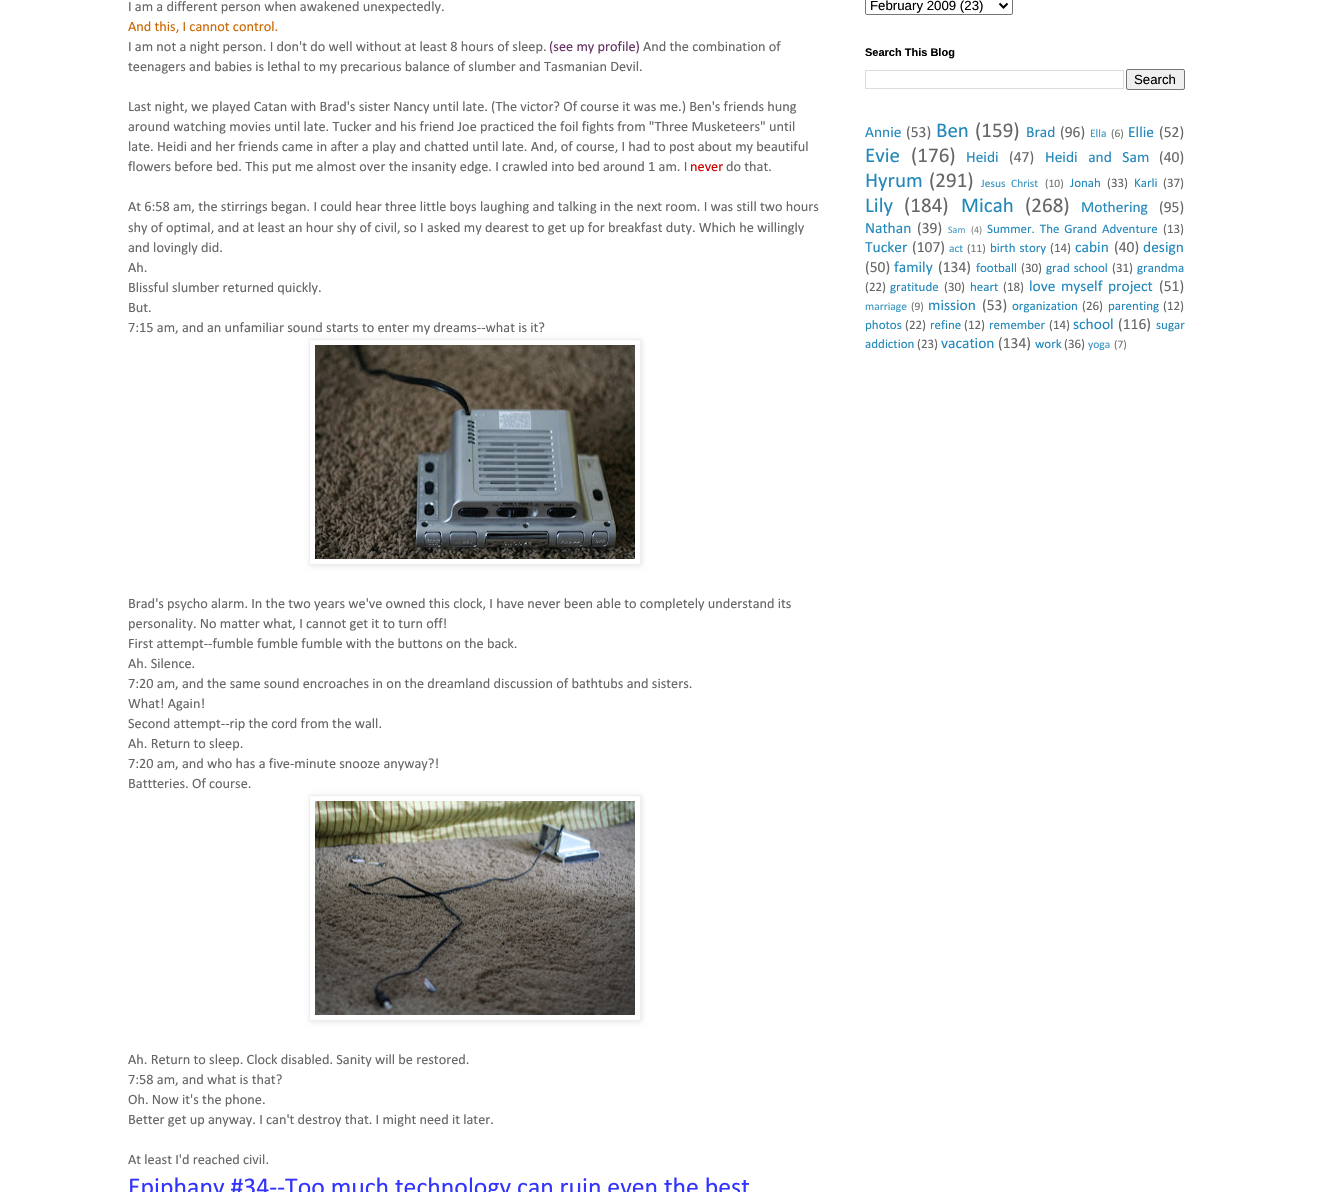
void draw(SkCanvas* canvas) {
	SkPaint paint;
	paint.setAntiAlias(true);
	auto spacedText = [&](const char* s, float x, float y, const SkFont& font, const SkPaint& ink, float letter, float word) {
		std::vector<SkGlyphID> glyphs(font.countText(s, strlen(s), SkTextEncoding::kUTF8));
		std::vector<float> xs(glyphs.size());
		font.textToGlyphs(s, strlen(s), SkTextEncoding::kUTF8, glyphs);
		font.getXPos(glyphs, xs, x);
		float extra = 0;
		for (size_t i = 0; i < glyphs.size(); i++) {
			xs[i] += extra;
			extra += letter + word * (glyphs[i] == font.unicharToGlyph(' '));
		}
		canvas->drawTextBlob(SkTextBlob::MakeFromPosHGlyphs(glyphs, xs, y, font), 0, 0, ink);
	};
	auto svgPath = [&](const char* data, bool evenOdd = false) {
		SkPath result = *SkParsePath::FromSVGString(data);
		if (evenOdd) result.setFillType(SkPathFillType::kEvenOdd);
		return result;
	};
	canvas->clear(0xffffffff);
	SkFont f1(fontMgr->matchFamilyStyle("Calibri", SkFontStyle::Normal()), 14.3);
	f1.setSubpixel(true);
	paint.setColor(0xff666666);
	canvas->drawString("I am a different person when awakened unexpectedly.", 128, 11, f1, paint);
	paint.setColor(0xffcc6600);
	canvas->drawString("And this, I cannot control.", 128, 31, f1, paint);
	paint.setColor(0xff666666);
	canvas->drawString("I am not a night person. I don't do well without at least 8 hours of sleep.", 128, 51, f1, paint);
	paint.setColor(0xff663366);
	canvas->drawString("(see my profile)", 549, 51, f1, paint);
	paint.setColor(0xff666666);
	canvas->drawString("And the combination of", 643, 51, f1, paint);
	canvas->drawString("teenagers and babies is lethal to my precarious balance of slumber and Tasmanian Devil.", 128, 71, f1, paint);
	canvas->drawString("Last night, we played Catan with Brad's sister Nancy until late. (The victor? Of course it was me.) Ben's friends hung", 128, 111, f1, paint);
	canvas->drawString("around watching movies until late. Tucker and his friend Joe practiced the foil fights from \"Three Musketeers\" until", 128, 131, f1, paint);
	canvas->drawString("late. Heidi and her friends came in after a play and chatted until late. And, of course, I had to post about my beautiful", 128, 151, f1, paint);
	canvas->drawString("flowers before bed. This put me almost over the insanity edge. I crawled into bed around 1 am. I", 128, 171, f1, paint);
	paint.setColor(0xffcc0000);
	canvas->drawString("never", 690, 171, f1, paint);
	paint.setColor(0xff666666);
	canvas->drawString("do that.", 726, 171, f1, paint);
	canvas->drawString("At 6:58 am, the stirrings began. I could hear three little boys laughing and talking in the next room. I was still two hours", 128, 211, f1, paint);
	canvas->drawString("shy of optimal, and at least an hour shy of civil, so I asked my dearest to get up for breakfast duty. Which he willingly", 128, 232, f1, paint);
	canvas->drawString("and lovingly did.", 128, 252, f1, paint);
	canvas->drawString("Ah.", 128, 272, f1, paint);
	canvas->drawString("Blissful slumber returned quickly.", 128, 292, f1, paint);
	canvas->drawString("But.", 128, 312, f1, paint);
	canvas->drawString("7:15 am, and an unfamiliar sound starts to enter my dreams--what is it?", 128, 332, f1, paint);
	canvas->save();
	canvas->clipPath(svgPath("M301 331H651V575H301ZM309 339H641V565H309Z", true), true);
	paint.setColor(0x1a000000);
	paint.setMaskFilter(SkMaskFilter::MakeBlur(kNormal_SkBlurStyle, 2.5));
	canvas->drawRect(SkRect::MakeXYWH(310, 340, 332, 226), paint);
	paint.setMaskFilter(nullptr);
	canvas->restore();
	paint.setStroke(true);
	paint.setStrokeWidth(1);
	paint.setColor(0xffeeeeee);
	canvas->drawRect(SkRect::MakeXYWH(309.5, 339.5, 331, 225), paint);
	canvas->drawImageRect(SkImages::DeferredFromEncodedData(SkData::MakeFromFileName("img1.png")), SkRect::MakeXYWH(315, 345, 320, 214), SkSamplingOptions());
	paint.setStroke(false);
	paint.setColor(0xff666666);
	canvas->drawString("Brad's psycho alarm. In the two years we've owned this clock, I have never been able to completely understand its", 128, 608, f1, paint);
	canvas->drawString("personality. No matter what, I cannot get it to turn off!", 128, 628, f1, paint);
	canvas->drawString("First attempt--fumble fumble fumble with the buttons on the back.", 128, 648, f1, paint);
	canvas->drawString("Ah. Silence.", 128, 668, f1, paint);
	canvas->drawString("7:20 am, and the same sound encroaches in on the dreamland discussion of bathtubs and sisters.", 128, 688, f1, paint);
	canvas->drawString("What! Again!", 128, 708, f1, paint);
	canvas->drawString("Second attempt--rip the cord from the wall.", 128, 728, f1, paint);
	canvas->drawString("Ah. Return to sleep.", 128, 748, f1, paint);
	canvas->drawString("7:20 am, and who has a five-minute snooze anyway?!", 128, 768, f1, paint);
	canvas->drawString("Battteries. Of course.", 128, 788, f1, paint);
	canvas->save();
	canvas->clipPath(svgPath("M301 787H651V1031H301ZM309 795H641V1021H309Z", true), true);
	paint.setColor(0x1a000000);
	paint.setMaskFilter(SkMaskFilter::MakeBlur(kNormal_SkBlurStyle, 2.5));
	canvas->drawRect(SkRect::MakeXYWH(310, 796, 332, 226), paint);
	paint.setMaskFilter(nullptr);
	canvas->restore();
	paint.setStroke(true);
	paint.setColor(0xffeeeeee);
	canvas->drawRect(SkRect::MakeXYWH(309.5, 795.5, 331, 225), paint);
	canvas->drawImageRect(SkImages::DeferredFromEncodedData(SkData::MakeFromFileName("img2.png")), SkRect::MakeXYWH(315, 801, 320, 214), SkSamplingOptions());
	paint.setStroke(false);
	paint.setColor(0xff666666);
	canvas->drawString("Ah. Return to sleep. Clock disabled. Sanity will be restored.", 128, 1064, f1, paint);
	canvas->drawString("7:58 am, and what is that?", 128, 1084, f1, paint);
	canvas->drawString("Oh. Now it's the phone.", 128, 1104, f1, paint);
	canvas->drawString("Better get up anyway. I can't destroy that. I might need it later.", 128, 1124, f1, paint);
	canvas->drawString("At least I'd reached civil.", 128, 1164, f1, paint);
	SkFont f2(fontMgr->matchFamilyStyle("Calibri", SkFontStyle::Normal()), 25.75);
	f2.setSubpixel(true);
	paint.setColor(0xff3333ff);
	canvas->drawString("Epiphany #34--Too much technology can ruin even the best", 128, 1195, f2, paint);
	paint.setStroke(true);
	paint.setColor(0xff767676);
	canvas->drawRoundRect(SkRect::MakeXYWH(865.5, -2.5, 147, 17), 1.5, 1.5, paint);
	paint.setStrokeWidth(2);
	paint.setColor(0xff000000);
	canvas->drawPath(svgPath("M999.5 3.5L1003.5 7.5L1007.5 3.5"), paint);
	SkFont f3(fontMgr->matchFamilyStyle("Liberation Sans", SkFontStyle::Normal()), 13.25);
	f3.setSubpixel(true);
	paint.setStroke(false);
	canvas->drawString("February 2009 (23)", 870, 10, f3, paint);
	SkFont f4(fontMgr->matchFamilyStyle("Liberation Sans", SkFontStyle::Bold()), 11);
	f4.setSubpixel(true);
	canvas->drawString("Search This Blog", 865, 56, f4, paint);
	paint.setStroke(true);
	paint.setStrokeWidth(1);
	paint.setColor(0xffdddddd);
	canvas->drawRect(SkRect::MakeXYWH(865.5, 70.5, 258, 18), paint);
	paint.setStroke(false);
	paint.setColor(0xffefefef);
	canvas->drawRoundRect(SkRect::MakeXYWH(1126.5, 69.5, 58, 20), 1.5, 1.5, paint);
	paint.setStroke(true);
	paint.setColor(0xff767676);
	canvas->drawRoundRect(SkRect::MakeXYWH(1126.5, 69.5, 58, 20), 1.5, 1.5, paint);
	paint.setStroke(false);
	paint.setColor(0xff000000);
	canvas->drawString("Search", 1134, 84, f3, paint);
	SkFont f5(fontMgr->matchFamilyStyle("Calibri", SkFontStyle::Normal()), 15.5);
	f5.setSubpixel(true);
	paint.setColor(0xff2288bb);
	canvas->drawString("Annie", 865, 137, f5, paint);
	paint.setColor(0xff666666);
	canvas->drawString("(53)", 906, 137, f5, paint);
	SkFont f6(fontMgr->matchFamilyStyle("Calibri", SkFontStyle::Normal()), 21);
	f6.setSubpixel(true);
	paint.setColor(0xff2288bb);
	canvas->drawString("Ben", 936, 137, f6, paint);
	paint.setColor(0xff666666);
	canvas->drawString("(159)", 975, 137, f6, paint);
	paint.setColor(0xff2288bb);
	canvas->drawString("Brad", 1026, 137, f5, paint);
	paint.setColor(0xff666666);
	canvas->drawString("(96)", 1060, 137, f5, paint);
	SkFont f7(fontMgr->matchFamilyStyle("Calibri", SkFontStyle::Normal()), 11.5);
	f7.setSubpixel(true);
	paint.setColor(0xff3894c2);
	canvas->drawString("Ella", 1090, 137, f7, paint);
	paint.setColor(0xff757575);
	canvas->drawString("(6)", 1111, 137, f7, paint);
	paint.setColor(0xff2288bb);
	canvas->drawString("Ellie", 1128, 137, f5, paint);
	paint.setColor(0xff666666);
	canvas->drawString("(52)", 1159, 137, f5, paint);
	paint.setColor(0xff2288bb);
	canvas->drawString("Evie", 865, 162, f6, paint);
	paint.setColor(0xff666666);
	canvas->drawString("(176)", 911, 162, f6, paint);
	paint.setColor(0xff2288bb);
	canvas->drawString("Heidi", 966, 162, f5, paint);
	paint.setColor(0xff666666);
	canvas->drawString("(47)", 1009, 162, f5, paint);
	paint.setColor(0xff2288bb);
	spacedText("Heidi and Sam", 1045, 162, f5, paint, 0, 7);
	paint.setColor(0xff666666);
	canvas->drawString("(40)", 1159, 162, f5, paint);
	paint.setColor(0xff2288bb);
	canvas->drawString("Hyrum", 865, 187, f6, paint);
	paint.setColor(0xff666666);
	canvas->drawString("(291)", 929, 187, f6, paint);
	paint.setColor(0xff3894c2);
	spacedText("Jesus Christ", 981, 187, f7, paint, 0, 3);
	paint.setColor(0xff757575);
	canvas->drawString("(10)", 1045, 187, f7, paint);
	SkFont f8(fontMgr->matchFamilyStyle("Calibri", SkFontStyle::Normal()), 13);
	f8.setSubpixel(true);
	paint.setColor(0xff2288bb);
	canvas->drawString("Jonah", 1070, 187, f8, paint);
	paint.setColor(0xff666666);
	canvas->drawString("(33)", 1107, 187, f8, paint);
	paint.setColor(0xff2288bb);
	canvas->drawString("Karli", 1134, 187, f8, paint);
	paint.setColor(0xff666666);
	canvas->drawString("(37)", 1163, 187, f8, paint);
	paint.setColor(0xff2288bb);
	canvas->drawString("Lily", 865, 212, f6, paint);
	paint.setColor(0xff666666);
	canvas->drawString("(184)", 904, 212, f6, paint);
	paint.setColor(0xff2288bb);
	canvas->drawString("Micah", 961, 212, f6, paint);
	paint.setColor(0xff666666);
	canvas->drawString("(268)", 1025, 212, f6, paint);
	paint.setColor(0xff2288bb);
	canvas->drawString("Mothering", 1081, 212, f5, paint);
	paint.setColor(0xff666666);
	canvas->drawString("(95)", 1159, 212, f5, paint);
	paint.setColor(0xff2288bb);
	canvas->drawString("Nathan", 865, 233, f5, paint);
	paint.setColor(0xff666666);
	canvas->drawString("(39)", 917, 233, f5, paint);
	SkFont f9(fontMgr->matchFamilyStyle("Calibri", SkFontStyle::Normal()), 10);
	f9.setSubpixel(true);
	paint.setColor(0xff4ea0c9);
	canvas->drawString("Sam", 948, 233, f9, paint);
	paint.setColor(0xff858585);
	canvas->drawString("(4)", 971, 233, f9, paint);
	paint.setColor(0xff2288bb);
	spacedText("Summer. The Grand Adventure", 987, 233, f8, paint, 0, 2);
	paint.setColor(0xff666666);
	canvas->drawString("(13)", 1163, 233, f8, paint);
	paint.setColor(0xff2288bb);
	canvas->drawString("Tucker", 865, 252, f5, paint);
	paint.setColor(0xff666666);
	canvas->drawString("(107)", 912, 252, f5, paint);
	paint.setColor(0xff3894c2);
	canvas->drawString("act", 949, 252, f7, paint);
	paint.setColor(0xff757575);
	canvas->drawString("(11)", 967, 252, f7, paint);
	paint.setColor(0xff2288bb);
	spacedText("birth story", 990, 252, f8, paint, 0, 1);
	paint.setColor(0xff666666);
	canvas->drawString("(14)", 1050, 252, f8, paint);
	paint.setColor(0xff2288bb);
	canvas->drawString("cabin", 1075, 252, f5, paint);
	paint.setColor(0xff666666);
	canvas->drawString("(40)", 1114, 252, f5, paint);
	paint.setColor(0xff2288bb);
	canvas->drawString("design", 1143, 252, f5, paint);
	paint.setColor(0xff666666);
	canvas->drawString("(50)", 865, 272, f5, paint);
	paint.setColor(0xff2288bb);
	canvas->drawString("family", 894, 272, f5, paint);
	paint.setColor(0xff666666);
	canvas->drawString("(134)", 938, 272, f5, paint);
	paint.setColor(0xff2288bb);
	canvas->drawString("football", 976, 272, f8, paint);
	paint.setColor(0xff666666);
	canvas->drawString("(30)", 1021, 272, f8, paint);
	paint.setColor(0xff2288bb);
	spacedText("grad school", 1046, 272, f8, paint, 0, 1);
	paint.setColor(0xff666666);
	canvas->drawString("(31)", 1112, 272, f8, paint);
	paint.setColor(0xff2288bb);
	canvas->drawString("grandma", 1137, 272, f8, paint);
	paint.setColor(0xff666666);
	canvas->drawString("(22)", 865, 291, f8, paint);
	paint.setColor(0xff2288bb);
	canvas->drawString("gratitude", 890, 291, f8, paint);
	paint.setColor(0xff666666);
	canvas->drawString("(30)", 944, 291, f8, paint);
	paint.setColor(0xff2288bb);
	canvas->drawString("heart", 970, 291, f8, paint);
	paint.setColor(0xff666666);
	canvas->drawString("(18)", 1003, 291, f8, paint);
	paint.setColor(0xff2288bb);
	spacedText("love myself project", 1029, 291, f5, paint, 0, 2);
	paint.setColor(0xff666666);
	canvas->drawString("(51)", 1159, 291, f5, paint);
	paint.setColor(0xff3894c2);
	canvas->drawString("marriage", 865, 310, f7, paint);
	paint.setColor(0xff757575);
	canvas->drawString("(9)", 911, 310, f7, paint);
	paint.setColor(0xff2288bb);
	canvas->drawString("mission", 928, 310, f5, paint);
	paint.setColor(0xff666666);
	canvas->drawString("(53)", 982, 310, f5, paint);
	paint.setColor(0xff2288bb);
	canvas->drawString("organization", 1012, 310, f8, paint);
	paint.setColor(0xff666666);
	canvas->drawString("(26)", 1082, 310, f8, paint);
	paint.setColor(0xff2288bb);
	canvas->drawString("parenting", 1108, 310, f8, paint);
	paint.setColor(0xff666666);
	canvas->drawString("(12)", 1163, 310, f8, paint);
	paint.setColor(0xff2288bb);
	canvas->drawString("photos", 865, 329, f8, paint);
	paint.setColor(0xff666666);
	canvas->drawString("(22)", 905, 329, f8, paint);
	paint.setColor(0xff2288bb);
	canvas->drawString("refine", 930, 329, f8, paint);
	paint.setColor(0xff666666);
	canvas->drawString("(12)", 964, 329, f8, paint);
	paint.setColor(0xff2288bb);
	canvas->drawString("remember", 989, 329, f8, paint);
	paint.setColor(0xff666666);
	canvas->drawString("(14)", 1049, 329, f8, paint);
	paint.setColor(0xff2288bb);
	canvas->drawString("school", 1073, 329, f5, paint);
	paint.setColor(0xff666666);
	canvas->drawString("(116)", 1118, 329, f5, paint);
	paint.setColor(0xff2288bb);
	canvas->drawString("sugar", 1156, 329, f8, paint);
	canvas->drawString("addiction", 865, 348, f8, paint);
	paint.setColor(0xff666666);
	canvas->drawString("(23)", 917, 348, f8, paint);
	paint.setColor(0xff2288bb);
	canvas->drawString("vacation", 941, 348, f5, paint);
	paint.setColor(0xff666666);
	canvas->drawString("(134)", 998, 348, f5, paint);
	paint.setColor(0xff2288bb);
	canvas->drawString("work", 1035, 348, f8, paint);
	paint.setColor(0xff666666);
	canvas->drawString("(36)", 1064, 348, f8, paint);
	paint.setColor(0xff3894c2);
	canvas->drawString("yoga", 1088, 348, f7, paint);
	paint.setColor(0xff757575);
	canvas->drawString("(7)", 1114, 348, f7, paint);
}
